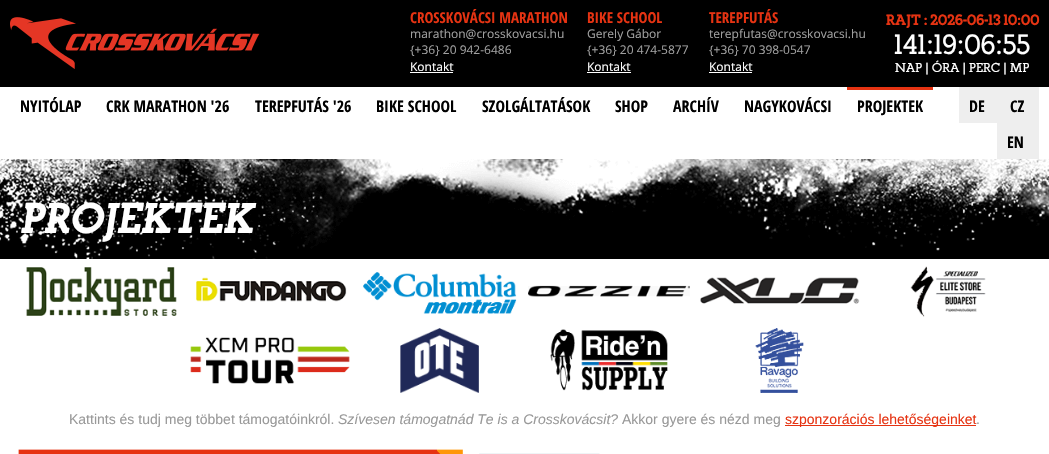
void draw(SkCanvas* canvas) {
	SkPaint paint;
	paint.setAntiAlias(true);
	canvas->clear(0xffffffff);
	paint.setColor(0xff000000);
	canvas->drawRect(SkRect::MakeXYWH(0, 0, 1049, 87), paint);
	canvas->drawImageRect(SkImages::DeferredFromEncodedData(SkData::MakeFromFileName("img1.png")), SkRect::MakeXYWH(10, 17, 250, 52), SkSamplingOptions());
	SkFont f1(fontMgr->matchFamilyStyle("Open Sans Condensed", SkFontStyle::Bold()), 15);
	f1.setSubpixel(true);
	paint.setColor(0xffe63312);
	canvas->drawString("CROSSKOVÁCSI MARATHON", 410, 23, f1, paint);
	SkFont f2(fontMgr->matchFamilyStyle("Open Sans", SkFontStyle::Normal()), 12);
	f2.setSubpixel(true);
	paint.setColor(0xffa0a0a0);
	canvas->drawString("marathon@crosskovacsi.hu", 410, 38, f2, paint);
	canvas->drawString("{+36} 20 942-6486", 410, 54, f2, paint);
	paint.setColor(0xffffffff);
	canvas->drawString("Kontakt", 410, 71, f2, paint);
	canvas->drawRect(SkRect::MakeXYWH(410, 72, 43, 1), paint);
	paint.setColor(0xffe63312);
	canvas->drawString("BIKE SCHOOL", 587, 23, f1, paint);
	paint.setColor(0xffa0a0a0);
	canvas->drawString("Gerely Gábor", 587, 38, f2, paint);
	canvas->drawString("{+36} 20 474-5877", 587, 54, f2, paint);
	paint.setColor(0xffffffff);
	canvas->drawString("Kontakt", 587, 71, f2, paint);
	canvas->drawRect(SkRect::MakeXYWH(587, 72, 44, 1), paint);
	paint.setColor(0xffe63312);
	canvas->drawString("TEREPFUTÁS", 709, 23, f1, paint);
	paint.setColor(0xffa0a0a0);
	canvas->drawString("terepfutas@crosskovacsi.hu", 709, 38, f2, paint);
	canvas->drawString("{+36} 70 398-0547", 709, 54, f2, paint);
	paint.setColor(0xffffffff);
	canvas->drawString("Kontakt", 709, 71, f2, paint);
	canvas->drawRect(SkRect::MakeXYWH(709, 72, 43, 1), paint);
	SkFont f3(fontMgr->matchFamilyStyle("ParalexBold", SkFontStyle::Bold()), 14);
	f3.setSubpixel(true);
	paint.setColor(0xffe63312);
	canvas->drawString("RAJT : 2026-06-13 10:00", 886, 25, f3, paint);
	SkFont f4(fontMgr->matchFamilyStyle("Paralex", SkFontStyle::Normal()), 26);
	f4.setSubpixel(true);
	paint.setColor(0xffffffff);
	canvas->drawString("141:19:06:55", 894, 54, f4, paint);
	SkFont f5(fontMgr->matchFamilyStyle("Paralex", SkFontStyle::Normal()), 12);
	f5.setSubpixel(true);
	canvas->drawString("NAP | ÓRA | PERC | MP", 895, 72, f5, paint);
	SkFont f6(fontMgr->matchFamilyStyle("Open Sans Condensed", SkFontStyle::Bold()), 16);
	f6.setSubpixel(true);
	paint.setColor(0xff000000);
	canvas->drawString("NYITÓLAP", 20, 112, f6, paint);
	canvas->drawString("CRK MARATHON '26", 106, 112, f6, paint);
	canvas->drawString("TEREPFUTÁS '26", 255, 112, f6, paint);
	canvas->drawString("BIKE SCHOOL", 376, 112, f6, paint);
	canvas->drawString("SZOLGÁLTATÁSOK", 482, 112, f6, paint);
	canvas->drawString("SHOP", 615, 112, f6, paint);
	canvas->drawString("ARCHÍV", 673, 112, f6, paint);
	canvas->drawString("NAGYKOVÁCSI", 744, 112, f6, paint);
	paint.setColor(0xffe63312);
	canvas->drawRect(SkRect::MakeXYWH(847, 87, 86, 3), paint);
	paint.setColor(0xff000000);
	canvas->drawString("PROJEKTEK", 857, 112, f6, paint);
	paint.setColor(0xffeeeeee);
	canvas->drawRect(SkRect::MakeXYWH(959, 87, 80, 36), paint);
	paint.setColor(0xff000000);
	canvas->drawString("DE", 969, 112, f6, paint);
	canvas->drawString("CZ", 1010, 112, f6, paint);
	paint.setColor(0xffeeeeee);
	canvas->drawRect(SkRect::MakeXYWH(997, 123, 42, 36), paint);
	paint.setColor(0xff000000);
	canvas->drawString("EN", 1007, 148, f6, paint);
	canvas->drawRect(SkRect::MakeXYWH(0, 159, 1049, 100), paint);
	canvas->drawImageRect(SkImages::DeferredFromEncodedData(SkData::MakeFromFileName("img2.png")), SkRect::MakeXYWH(0, 159, 1049, 100), SkSamplingOptions());
	SkFont f7(fontMgr->matchFamilyStyle("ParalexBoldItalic", SkFontStyle::BoldItalic()), 40);
	f7.setSubpixel(true);
	paint.setColor(0xffffffff);
	canvas->drawString("PROJEKTEK", 20, 233, f7, paint);
	canvas->drawImageRect(SkImages::DeferredFromEncodedData(SkData::MakeFromFileName("img3.png")), SkRect::MakeXYWH(26, 267, 151, 49), SkSamplingOptions());
	canvas->drawImageRect(SkImages::DeferredFromEncodedData(SkData::MakeFromFileName("img4.png")), SkRect::MakeXYWH(196, 277, 151, 25), SkSamplingOptions());
	canvas->drawImageRect(SkImages::DeferredFromEncodedData(SkData::MakeFromFileName("img5.png")), SkRect::MakeXYWH(363, 272, 154, 42), SkSamplingOptions());
	canvas->drawImageRect(SkImages::DeferredFromEncodedData(SkData::MakeFromFileName("img6.png")), SkRect::MakeXYWH(528, 285, 162, 12), SkSamplingOptions());
	canvas->drawImageRect(SkImages::DeferredFromEncodedData(SkData::MakeFromFileName("img7.png")), SkRect::MakeXYWH(700, 277, 160, 27), SkSamplingOptions());
	canvas->drawImageRect(SkImages::DeferredFromEncodedData(SkData::MakeFromFileName("img8.png")), SkRect::MakeXYWH(910, 266, 76, 51), SkSamplingOptions());
	canvas->drawImageRect(SkImages::DeferredFromEncodedData(SkData::MakeFromFileName("img9.png")), SkRect::MakeXYWH(190, 337, 160, 47), SkSamplingOptions());
	canvas->drawImageRect(SkImages::DeferredFromEncodedData(SkData::MakeFromFileName("img10.png")), SkRect::MakeXYWH(400, 328, 79, 65), SkSamplingOptions());
	canvas->drawImageRect(SkImages::DeferredFromEncodedData(SkData::MakeFromFileName("img11.png")), SkRect::MakeXYWH(550, 329, 118, 62), SkSamplingOptions());
	canvas->drawImageRect(SkImages::DeferredFromEncodedData(SkData::MakeFromFileName("img12.png")), SkRect::MakeXYWH(755, 328, 49, 65), SkSamplingOptions());
	SkFont f8(fontMgr->matchFamilyStyle("Liberation Sans", SkFontStyle::Normal()), 14);
	f8.setSubpixel(true);
	paint.setColor(0xff999999);
	canvas->drawString("Kattints és tudj meg többet támogatóinkról.", 69, 424, f8, paint);
	SkFont f9(fontMgr->matchFamilyStyle("Liberation Sans", SkFontStyle::Italic()), 14);
	f9.setSubpixel(true);
	canvas->drawString("Szívesen támogatnád Te is a Crosskovácsit?", 338, 424, f9, paint);
	canvas->drawString("Akkor gyere és nézd meg", 622, 424, f8, paint);
	paint.setColor(0xffe63312);
	canvas->drawRect(SkRect::MakeXYWH(785, 425, 191, 1), paint);
	canvas->drawString("szponzorációs lehetőségeinket", 785, 424, f8, paint);
	paint.setColor(0xff999999);
	canvas->drawString(".", 976, 424, f8, paint);
	canvas->drawImageRect(SkImages::DeferredFromEncodedData(SkData::MakeFromFileName("img13.png")), SkRect::MakeXYWH(18, 449, 582, 5), SkSamplingOptions());
}
